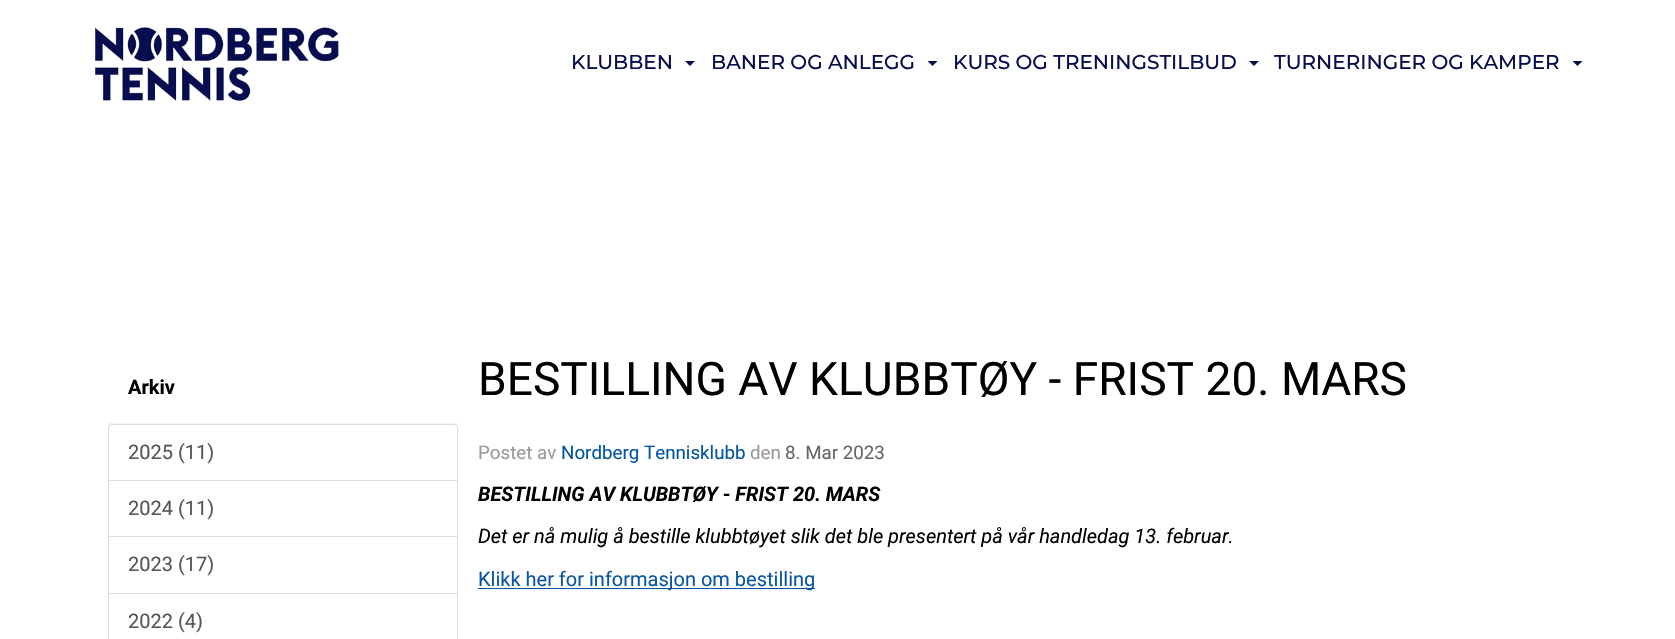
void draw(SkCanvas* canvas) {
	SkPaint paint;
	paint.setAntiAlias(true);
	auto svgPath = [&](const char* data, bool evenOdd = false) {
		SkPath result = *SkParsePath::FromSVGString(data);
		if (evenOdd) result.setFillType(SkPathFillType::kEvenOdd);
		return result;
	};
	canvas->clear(0xffffffff);
	canvas->drawImageRect(SkImages::DeferredFromEncodedData(SkData::MakeFromFileName("img1.png")), SkRect::MakeXYWH(95, 27, 244, 74), SkSamplingOptions());
	SkFont f1(fontMgr->matchFamilyStyle("Montserrat", SkFontStyle(500, SkFontStyle::kNormal_Width, SkFontStyle::kUpright_Slant)), 20);
	f1.setSubpixel(true);
	paint.setColor(0xff060e4f);
	canvas->drawString("KLUBBEN", 571, 69, f1, paint);
	canvas->drawPath(svgPath("M685 61H695L690 66Z"), paint);
	canvas->drawString("BANER OG ANLEGG", 711, 69, f1, paint);
	canvas->drawPath(svgPath("M927.5 61H937.5L932.5 66Z"), paint);
	canvas->drawString("KURS OG TRENINGSTILBUD", 953, 69, f1, paint);
	canvas->drawPath(svgPath("M1249 61H1259L1254 66Z"), paint);
	canvas->drawString("TURNERINGER OG KAMPER", 1274, 69, f1, paint);
	canvas->drawPath(svgPath("M1572.5 61H1582.5L1577.5 66Z"), paint);
	paint.setColor(0xfff2f2f2);
	canvas->drawRect(SkRect::MakeXYWH(108, 423, 350, 6), paint);
	SkFont f2(fontMgr->matchFamilyStyle("Roboto", SkFontStyle::Bold()), 20);
	f2.setSubpixel(true);
	paint.setColor(0xff000000);
	canvas->drawString("Arkiv", 128, 394, f2, paint);
	paint.setColor(0xffffffff);
	canvas->drawPath(svgPath("M113 424.5H453C455.5 424.5 457.5 426.5 457.5 429V480.5H108.5V429C108.5 426.5 110.5 424.5 113 424.5Z"), paint);
	paint.setStroke(true);
	paint.setStrokeWidth(1);
	paint.setColor(0xffdddddd);
	canvas->drawPath(svgPath("M113 424.5H453C455.5 424.5 457.5 426.5 457.5 429V480.5H108.5V429C108.5 426.5 110.5 424.5 113 424.5Z"), paint);
	SkFont f3(fontMgr->matchFamilyStyle("Roboto", SkFontStyle::Normal()), 20);
	f3.setSubpixel(true);
	paint.setStroke(false);
	paint.setColor(0xff555555);
	canvas->drawString("2025 (11)", 128, 459, f3, paint);
	paint.setStroke(true);
	paint.setColor(0xffdddddd);
	canvas->drawRect(SkRect::MakeXYWH(108.5, 480.5, 349, 57), paint);
	paint.setStroke(false);
	paint.setColor(0xff555555);
	canvas->drawString("2024 (11)", 128, 515, f3, paint);
	paint.setColor(0xffffffff);
	canvas->drawRect(SkRect::MakeXYWH(109, 537, 348, 1), paint);
	paint.setStroke(true);
	paint.setColor(0xffdddddd);
	canvas->drawRect(SkRect::MakeXYWH(108.5, 536.5, 349, 57), paint);
	paint.setStroke(false);
	paint.setColor(0xff555555);
	canvas->drawString("2023 (17)", 128, 571, f3, paint);
	paint.setStroke(true);
	paint.setColor(0xffdddddd);
	canvas->drawRect(SkRect::MakeXYWH(108.5, 593.5, 349, 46), paint);
	paint.setStroke(false);
	paint.setColor(0xff555555);
	canvas->drawString("2022 (4)", 128, 628, f3, paint);
	SkFont f4(fontMgr->matchFamilyStyle("Roboto", SkFontStyle::Normal()), 46.1);
	f4.setSubpixel(true);
	paint.setColor(0xff000000);
	canvas->drawString("BESTILLING AV KLUBBTØY - FRIST 20. MARS", 478, 395, f4, paint);
	SkFont f5(fontMgr->matchFamilyStyle("Roboto", SkFontStyle::Normal()), 18.75);
	f5.setSubpixel(true);
	paint.setColor(0xff999999);
	canvas->drawString("Postet av", 478, 459, f5, paint);
	paint.setColor(0xff0054a6);
	canvas->drawString("Nordberg Tennisklubb", 561, 459, f5, paint);
	paint.setColor(0xff999999);
	canvas->drawString("den", 750, 459, f5, paint);
	paint.setColor(0xff666666);
	canvas->drawString("8. Mar 2023", 785, 459, f5, paint);
	SkFont f6(fontMgr->matchFamilyStyle("Roboto", SkFontStyle::BoldItalic()), 20);
	f6.setSubpixel(true);
	paint.setColor(0xff000000);
	canvas->drawString("BESTILLING AV KLUBBTØY - FRIST 20. MARS", 478, 501, f6, paint);
	SkFont f7(fontMgr->matchFamilyStyle("Roboto", SkFontStyle::Italic()), 20);
	f7.setSubpixel(true);
	canvas->drawString("Det er nå mulig å bestille klubbtøyet slik det ble presentert på vår handledag 13. februar.", 478, 543, f7, paint);
	paint.setColor(0xff0956a4);
	canvas->drawRect(SkRect::MakeXYWH(478, 588, 337, 1), paint);
	canvas->drawString("Klikk her for informasjon om bestilling", 478, 586, f3, paint);
}
